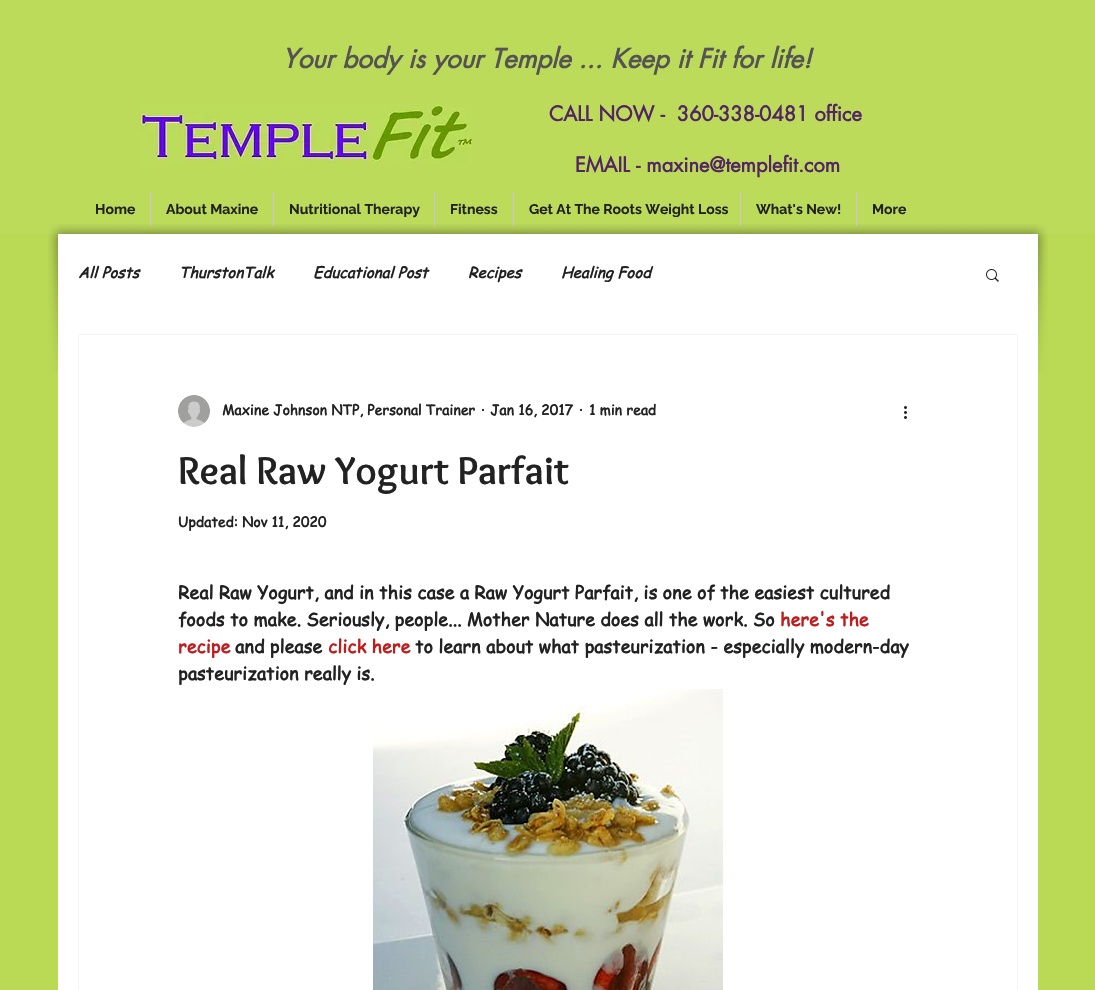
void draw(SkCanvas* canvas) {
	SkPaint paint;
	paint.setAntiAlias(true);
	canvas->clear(0xffbada55);
	canvas->drawImageRect(SkImages::DeferredFromEncodedData(SkData::MakeFromFileName("img2.png")), SkRect::MakeXYWH(48, 224, 45, 148), SkSamplingOptions());
	canvas->drawImageRect(SkImages::DeferredFromEncodedData(SkData::MakeFromFileName("img3.png")), SkRect::MakeXYWH(93, 224, 910, 10), SkSamplingOptions());
	canvas->drawImageRect(SkImages::DeferredFromEncodedData(SkData::MakeFromFileName("img4.png")), SkRect::MakeXYWH(1003, 224, 45, 148), SkSamplingOptions());
	paint.setColor(0x08ffffff);
	canvas->drawRect(SkRect::MakeXYWH(0, 0, 1095, 234), paint);
	SkFont f1(fontMgr->matchFamilyStyle("futura", SkFontStyle::BoldItalic()), 26);
	f1.setSubpixel(true);
	paint.setColor(0xff555353);
	canvas->drawString("Your body is your Temple ... Keep it Fit for life!", 282, 68, f1, paint);
	canvas->drawImageRect(SkImages::DeferredFromEncodedData(SkData::MakeFromFileName("img1.png")), SkRect::MakeXYWH(139, 104, 333, 60), SkSamplingOptions());
	SkFont f2(fontMgr->matchFamilyStyle("futura", SkFontStyle::Bold()), 20);
	f2.setSubpixel(true);
	paint.setColor(0xff532563);
	canvas->drawString("CALL NOW -  360-338-0481 office", 549, 121, f2, paint);
	canvas->drawString("EMAIL - maxine@templefit.com", 575, 172, f2, paint);
	SkFont f3(fontMgr->matchFamilyStyle("Raleway", SkFontStyle::Bold()), 14);
	f3.setSubpixel(true);
	paint.setColor(0xff222222);
	canvas->drawString("Home", 95, 214, f3, paint);
	paint.setColor(0xffd8bde2);
	canvas->drawRect(SkRect::MakeXYWH(150, 192, 1, 34), paint);
	paint.setColor(0xff222222);
	canvas->drawString("About Maxine", 166, 214, f3, paint);
	paint.setColor(0xffd8bde2);
	canvas->drawRect(SkRect::MakeXYWH(273, 192, 1, 34), paint);
	paint.setColor(0xff222222);
	canvas->drawString("Nutritional Therapy", 289, 214, f3, paint);
	paint.setColor(0xffd8bde2);
	canvas->drawRect(SkRect::MakeXYWH(434, 192, 1, 34), paint);
	paint.setColor(0xff222222);
	canvas->drawString("Fitness", 450, 214, f3, paint);
	paint.setColor(0xffd8bde2);
	canvas->drawRect(SkRect::MakeXYWH(513, 192, 1, 34), paint);
	paint.setColor(0xff222222);
	canvas->drawString("Get At The Roots Weight Loss", 529, 214, f3, paint);
	paint.setColor(0xffd8bde2);
	canvas->drawRect(SkRect::MakeXYWH(740, 192, 1, 34), paint);
	paint.setColor(0xff222222);
	canvas->drawString("What's New!", 756, 214, f3, paint);
	paint.setColor(0xffd8bde2);
	canvas->drawRect(SkRect::MakeXYWH(856, 192, 1, 34), paint);
	paint.setColor(0xff222222);
	canvas->drawString("More", 872, 214, f3, paint);
	paint.setColor(0xffffffff);
	canvas->drawRect(SkRect::MakeXYWH(58, 234, 980, 756), paint);
	SkFont f4(fontMgr->matchFamilyStyle("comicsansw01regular", SkFontStyle::BoldItalic()), 15);
	f4.setSubpixel(true);
	paint.setColor(0xff222222);
	canvas->drawString("All Posts", 78, 278, f4, paint);
	canvas->drawString("ThurstonTalk", 179, 278, f4, paint);
	canvas->drawString("Educational Post", 313, 278, f4, paint);
	canvas->drawString("Recipes", 468, 278, f4, paint);
	canvas->drawString("Healing Food", 561, 278, f4, paint);
	canvas->drawImageRect(SkImages::DeferredFromEncodedData(SkData::MakeFromFileName("img5.png")), SkRect::MakeXYWH(986, 269, 13, 13), SkSamplingOptions());
	paint.setStroke(true);
	paint.setStrokeWidth(1);
	paint.setColor(0xfff4f4f4);
	canvas->drawRect(SkRect::MakeXYWH(78.5, 334.5, 939, 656), paint);
	canvas->drawImageRect(SkImages::DeferredFromEncodedData(SkData::MakeFromFileName("img6.png")), SkRect::MakeXYWH(178, 395, 32, 32), SkSamplingOptions());
	SkFont f5(fontMgr->matchFamilyStyle("comicsansw01regular", SkFontStyle::Bold()), 14);
	f5.setSubpixel(true);
	paint.setStroke(false);
	paint.setColor(0xff222222);
	canvas->drawString("Maxine Johnson NTP, Personal Trainer", 222, 415, f5, paint);
	canvas->drawString("·", 481, 415, f5, paint);
	canvas->drawString("Jan 16, 2017", 490, 415, f5, paint);
	canvas->drawString("·", 579, 415, f5, paint);
	canvas->drawString("1 min read", 589, 415, f5, paint);
	canvas->drawImageRect(SkImages::DeferredFromEncodedData(SkData::MakeFromFileName("img7.png")), SkRect::MakeXYWH(904, 406, 3, 13), SkSamplingOptions());
	SkFont f6(fontMgr->matchFamilyStyle("Overlock", SkFontStyle::Bold()), 40);
	f6.setSubpixel(true);
	canvas->drawString("Real Raw Yogurt Parfait", 178, 484, f6, paint);
	canvas->drawString("Updated: Nov 11, 2020", 178, 527, f5, paint);
	SkFont f7(fontMgr->matchFamilyStyle("comicsansw01regular", SkFontStyle::Bold()), 18);
	f7.setSubpixel(true);
	canvas->drawString("Real Raw Yogurt, and in this case a Raw Yogurt Parfait, is one of the easiest cultured", 178, 599, f7, paint);
	canvas->drawString("foods to make. Seriously, people... Mother Nature does all the work. So", 178, 626, f7, paint);
	paint.setColor(0xffbf1d1d);
	canvas->drawString("here's the", 780, 626, f7, paint);
	canvas->drawString("recipe", 178, 653, f7, paint);
	paint.setColor(0xff222222);
	canvas->drawString("and please", 235, 653, f7, paint);
	paint.setColor(0xffbf1d1d);
	canvas->drawString("click here", 328, 653, f7, paint);
	paint.setColor(0xff222222);
	canvas->drawString("to learn about what pasteurization - especially modern-day", 415, 653, f7, paint);
	canvas->drawString("pasteurization really is.", 178, 680, f7, paint);
	canvas->drawImageRect(SkImages::DeferredFromEncodedData(SkData::MakeFromFileName("img8.png")), SkRect::MakeXYWH(373, 689, 350, 301), SkSamplingOptions());
}
